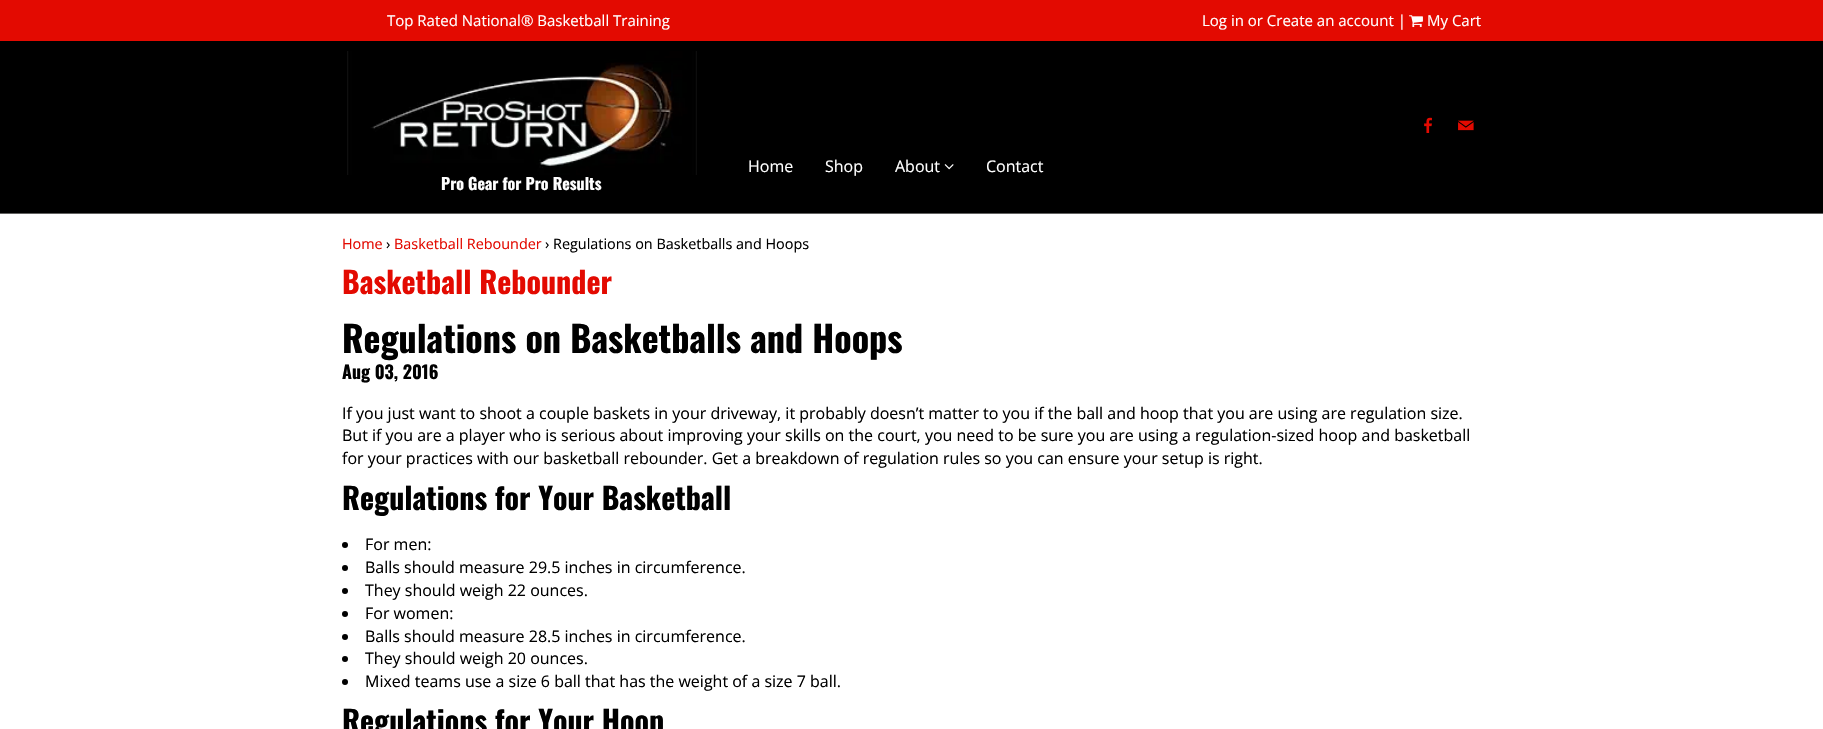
void draw(SkCanvas* canvas) {
	SkPaint paint;
	paint.setAntiAlias(true);
	canvas->clear(0xffffffff);
	paint.setColor(0xffe30a01);
	canvas->drawRect(SkRect::MakeXYWH(0, 0, 1823, 41), paint);
	SkFont f1(fontMgr->matchFamilyStyle("Open Sans", SkFontStyle::Normal()), 15);
	f1.setSubpixel(true);
	paint.setColor(0xffffffff);
	canvas->drawString("Top Rated National® Basketball Training", 387, 26, f1, paint);
	canvas->drawString("Log in or Create an account |", 1202, 26, f1, paint);
	canvas->drawImageRect(SkImages::DeferredFromEncodedData(SkData::MakeFromFileName("img1.png")), SkRect::MakeXYWH(1409, 15, 14, 13), SkSamplingOptions());
	canvas->drawString("My Cart", 1427, 26, f1, paint);
	paint.setColor(0xff000000);
	canvas->drawRect(SkRect::MakeXYWH(0, 41, 1823, 172), paint);
	paint.setColor(0xff616160);
	canvas->drawRect(SkRect::MakeXYWH(0, 213, 1823, 1), paint);
	canvas->drawImageRect(SkImages::DeferredFromEncodedData(SkData::MakeFromFileName("img2.png")), SkRect::MakeXYWH(1424, 117, 8, 16), SkSamplingOptions());
	canvas->drawImageRect(SkImages::DeferredFromEncodedData(SkData::MakeFromFileName("img3.png")), SkRect::MakeXYWH(1458, 120, 16, 11), SkSamplingOptions());
	SkFont f2(fontMgr->matchFamilyStyle("Open Sans", SkFontStyle::Normal()), 16);
	f2.setSubpixel(true);
	paint.setColor(0xffffffff);
	canvas->drawString("Home", 748, 172, f2, paint);
	canvas->drawString("Shop", 825, 172, f2, paint);
	canvas->drawString("About", 895, 172, f2, paint);
	canvas->drawImageRect(SkImages::DeferredFromEncodedData(SkData::MakeFromFileName("img4.png")), SkRect::MakeXYWH(944, 164, 10, 6), SkSamplingOptions());
	canvas->drawString("Contact", 986, 172, f2, paint);
	canvas->drawImageRect(SkImages::DeferredFromEncodedData(SkData::MakeFromFileName("img5.png")), SkRect::MakeXYWH(347, 51, 350, 124), SkSamplingOptions());
	SkFont f3(fontMgr->matchFamilyStyle("Oswald", SkFontStyle::Bold()), 16);
	f3.setSubpixel(true);
	canvas->drawString("Pro Gear for Pro Results", 441, 190, f3, paint);
	SkFont f4(fontMgr->matchFamilyStyle("Open Sans", SkFontStyle::Normal()), 14.4);
	f4.setSubpixel(true);
	paint.setColor(0xffe30a01);
	canvas->drawString("Home", 342, 249, f4, paint);
	paint.setColor(0xff000000);
	canvas->drawString("›", 386, 249, f4, paint);
	paint.setColor(0xffe30a01);
	canvas->drawString("Basketball Rebounder", 394, 249, f4, paint);
	paint.setColor(0xff000000);
	canvas->drawString("› Regulations on Basketballs and Hoops", 545, 249, f4, paint);
	SkFont f5(fontMgr->matchFamilyStyle("Oswald", SkFontStyle::Bold()), 30);
	f5.setSubpixel(true);
	paint.setColor(0xffe30a01);
	canvas->drawString("Basketball Rebounder", 342, 294, f5, paint);
	SkFont f6(fontMgr->matchFamilyStyle("Oswald", SkFontStyle::Bold()), 36);
	f6.setSubpixel(true);
	paint.setColor(0xff000000);
	canvas->drawString("Regulations on Basketballs and Hoops", 342, 353, f6, paint);
	SkFont f7(fontMgr->matchFamilyStyle("Oswald", SkFontStyle::Bold()), 18);
	f7.setSubpixel(true);
	canvas->drawString("Aug 03, 2016", 342, 379, f7, paint);
	canvas->drawString("If you just want to shoot a couple baskets in your driveway, it probably doesn’t matter to you if the ball and hoop that you are using are regulation size.", 342, 419, f2, paint);
	canvas->drawString("But if you are a player who is serious about improving your skills on the court, you need to be sure you are using a regulation-sized hoop and basketball", 342, 441, f2, paint);
	canvas->drawString("for your practices with our basketball rebounder. Get a breakdown of regulation rules so you can ensure your setup is right.", 342, 464, f2, paint);
	canvas->drawString("Regulations for Your Basketball", 342, 510, f5, paint);
	canvas->drawCircle(345, 545, 3, paint);
	canvas->drawString("For men:", 365, 550, f2, paint);
	canvas->drawCircle(345, 568, 3, paint);
	canvas->drawString("Balls should measure 29.5 inches in circumference.", 365, 573, f2, paint);
	canvas->drawCircle(345, 591, 3, paint);
	canvas->drawString("They should weigh 22 ounces.", 365, 596, f2, paint);
	canvas->drawCircle(345, 614, 3, paint);
	canvas->drawString("For women:", 365, 619, f2, paint);
	canvas->drawCircle(345, 637, 3, paint);
	canvas->drawString("Balls should measure 28.5 inches in circumference.", 365, 642, f2, paint);
	canvas->drawCircle(345, 659, 3, paint);
	canvas->drawString("They should weigh 20 ounces.", 365, 664, f2, paint);
	canvas->drawCircle(345, 682, 3, paint);
	canvas->drawString("Mixed teams use a size 6 ball that has the weight of a size 7 ball.", 365, 687, f2, paint);
	canvas->drawString("Regulations for Your Hoop", 342, 733, f5, paint);
}
